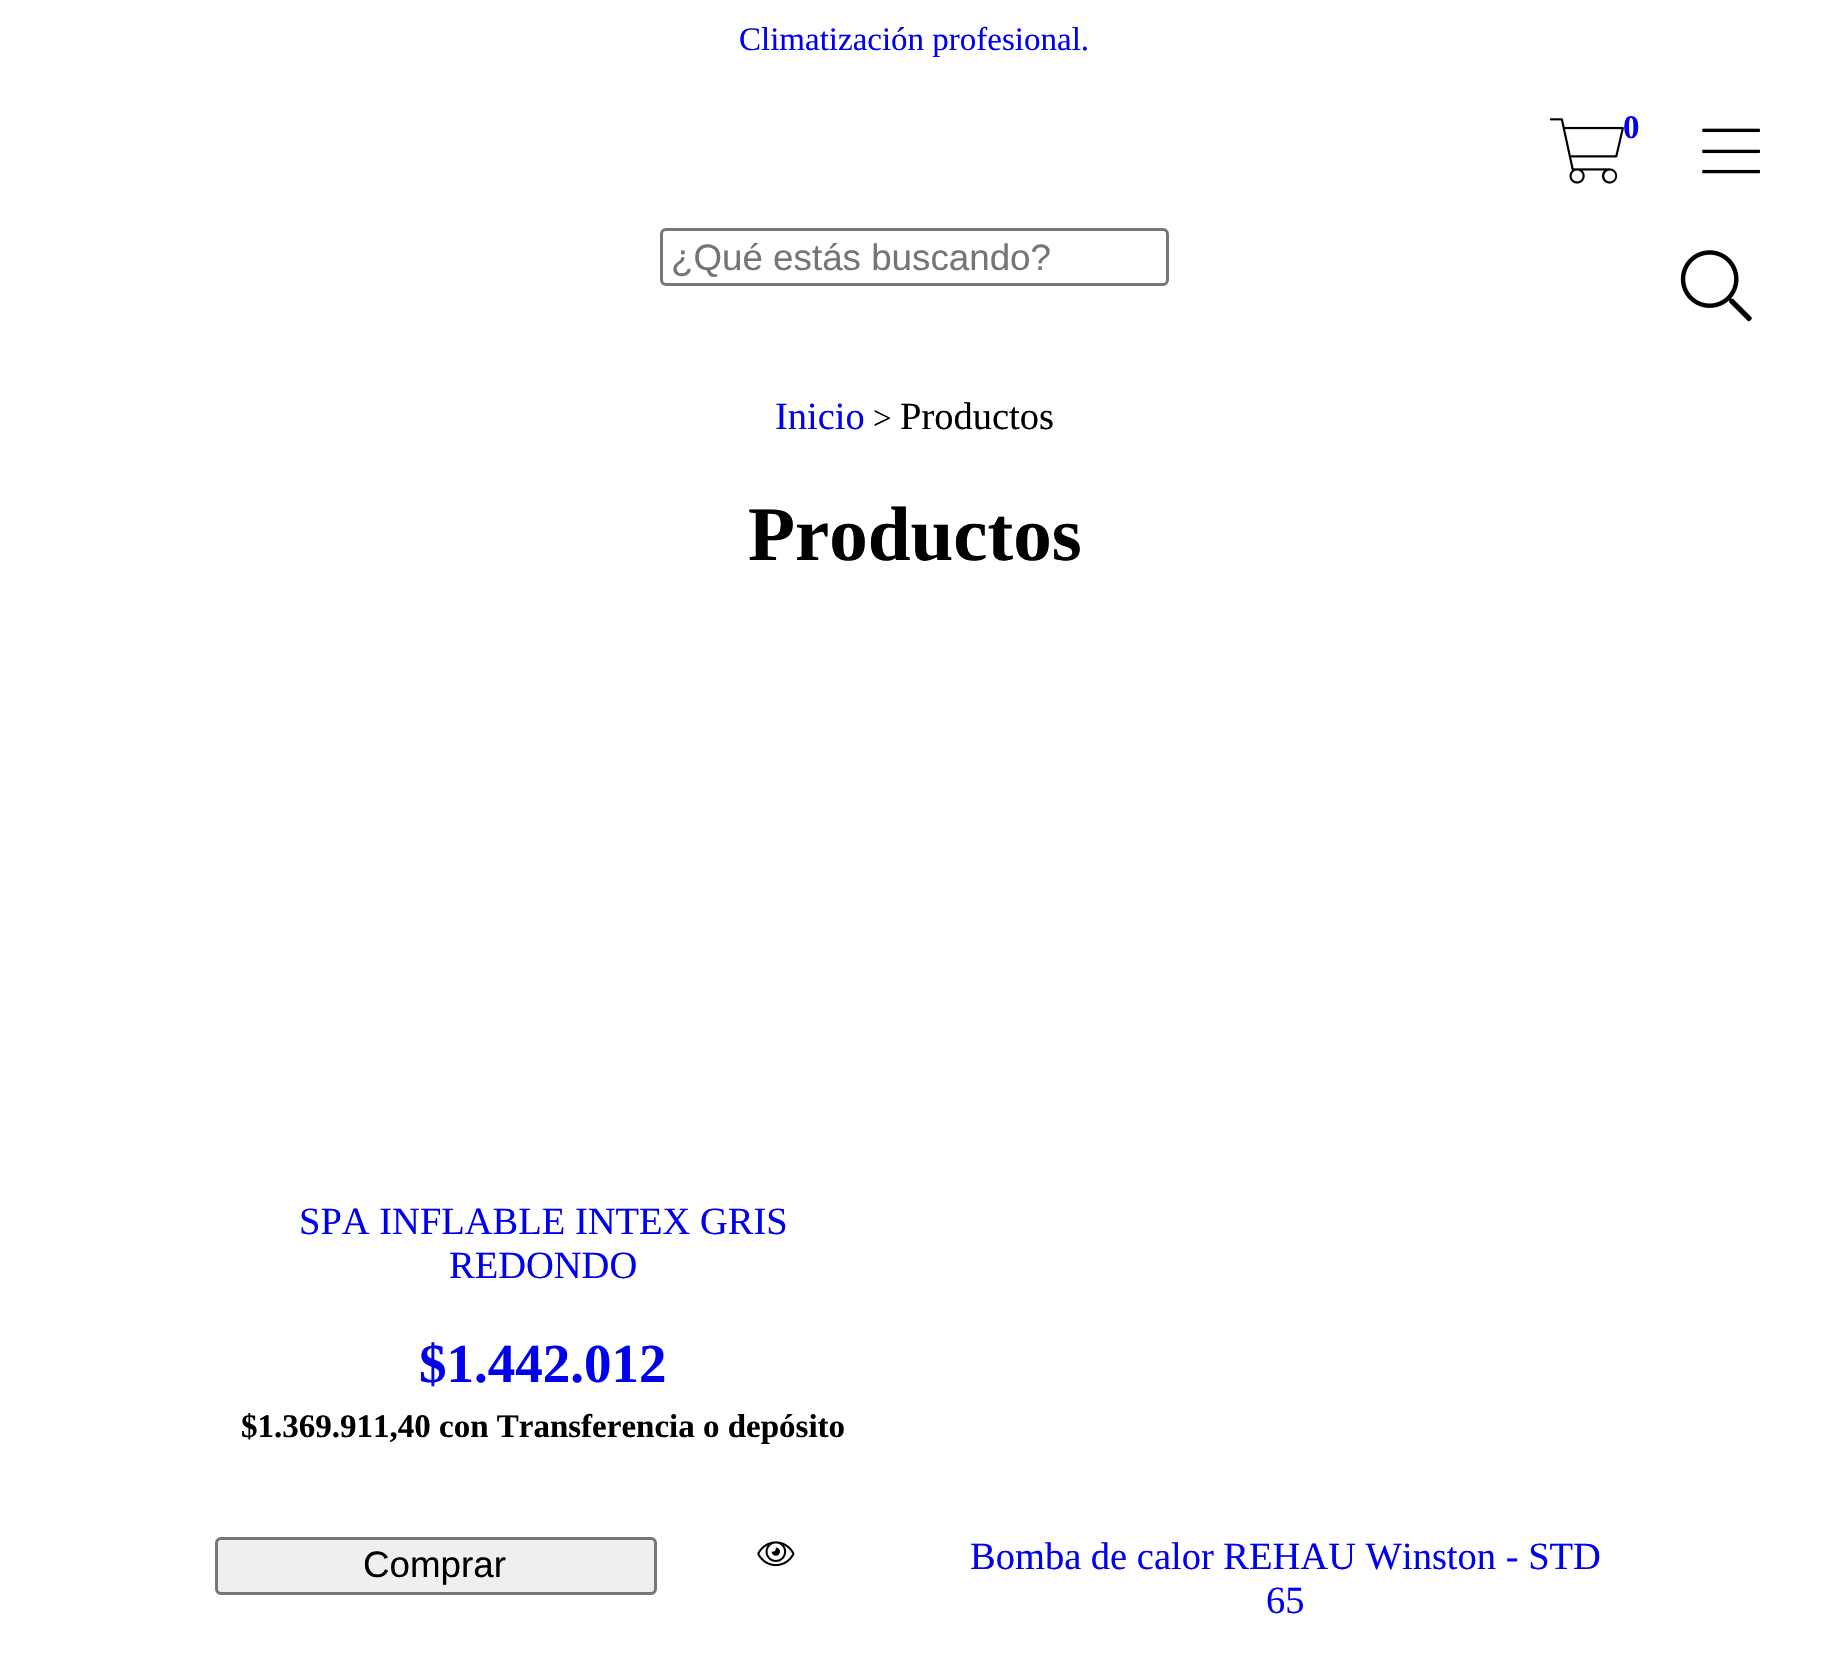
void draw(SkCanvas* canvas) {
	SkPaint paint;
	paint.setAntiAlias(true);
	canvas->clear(0xffffffff);
	SkFont f1(fontMgr->matchFamilyStyle("Liberation Serif", SkFontStyle::Normal()), 33);
	f1.setSubpixel(true);
	paint.setColor(0xff0000ee);
	canvas->drawString("Climatización profesional.", 739, 50, f1, paint);
	canvas->drawImageRect(SkImages::DeferredFromEncodedData(SkData::MakeFromFileName("img1.png")), SkRect::MakeXYWH(1549, 118, 75, 66), SkSamplingOptions());
	SkFont f2(fontMgr->matchFamilyStyle("Liberation Serif", SkFontStyle::Bold()), 33);
	f2.setSubpixel(true);
	canvas->drawString("0", 1623, 138, f2, paint);
	canvas->drawImageRect(SkImages::DeferredFromEncodedData(SkData::MakeFromFileName("img2.png")), SkRect::MakeXYWH(1702, 128, 58, 46), SkSamplingOptions());
	paint.setStroke(true);
	paint.setStrokeWidth(3);
	paint.setColor(0xff767676);
	canvas->drawRoundRect(SkRect::MakeXYWH(661.5, 229.5, 506, 55), 4.5, 4.5, paint);
	SkFont f3(fontMgr->matchFamilyStyle("Liberation Sans", SkFontStyle::Normal()), 36.75);
	f3.setSubpixel(true);
	paint.setStroke(false);
	paint.setColor(0xff757575);
	canvas->drawString("¿Qué estás buscando?", 671, 270, f3, paint);
	canvas->drawImageRect(SkImages::DeferredFromEncodedData(SkData::MakeFromFileName("img3.png")), SkRect::MakeXYWH(1680, 250, 72, 72), SkSamplingOptions());
	SkFont f4(fontMgr->matchFamilyStyle("Liberation Serif", SkFontStyle::Normal()), 38.5);
	f4.setSubpixel(true);
	paint.setColor(0xff0000ee);
	canvas->drawString("Inicio", 775, 429, f4, paint);
	paint.setColor(0xff000000);
	canvas->drawString(">", 873, 429, f1, paint);
	canvas->drawString("Productos", 900, 429, f4, paint);
	SkFont f5(fontMgr->matchFamilyStyle("Liberation Serif", SkFontStyle::Bold()), 77);
	f5.setSubpixel(true);
	canvas->drawString("Productos", 748, 560, f5, paint);
	paint.setColor(0xff0000ee);
	canvas->drawString("SPA INFLABLE INTEX GRIS", 299, 1234, f4, paint);
	canvas->drawString("REDONDO", 449, 1278, f4, paint);
	SkFont f6(fontMgr->matchFamilyStyle("Liberation Serif", SkFontStyle::Bold()), 55);
	f6.setSubpixel(true);
	canvas->drawString("$1.442.012", 419, 1382, f6, paint);
	paint.setColor(0xff000000);
	canvas->drawString("$1.369.911,40 con Transferencia o depósito", 241, 1437, f2, paint);
	paint.setColor(0xffefefef);
	canvas->drawRoundRect(SkRect::MakeXYWH(216.5, 1538.5, 439, 55), 4.5, 4.5, paint);
	paint.setStroke(true);
	paint.setColor(0xff767676);
	canvas->drawRoundRect(SkRect::MakeXYWH(216.5, 1538.5, 439, 55), 4.5, 4.5, paint);
	paint.setStroke(false);
	paint.setColor(0xff000000);
	canvas->drawString("Comprar", 363, 1577, f3, paint);
	canvas->drawImageRect(SkImages::DeferredFromEncodedData(SkData::MakeFromFileName("img4.png")), SkRect::MakeXYWH(757, 1541, 38, 26), SkSamplingOptions());
	paint.setColor(0xff0000ee);
	canvas->drawString("Bomba de calor REHAU Winston - STD", 970, 1569, f4, paint);
	canvas->drawString("65", 1266, 1613, f4, paint);
}
